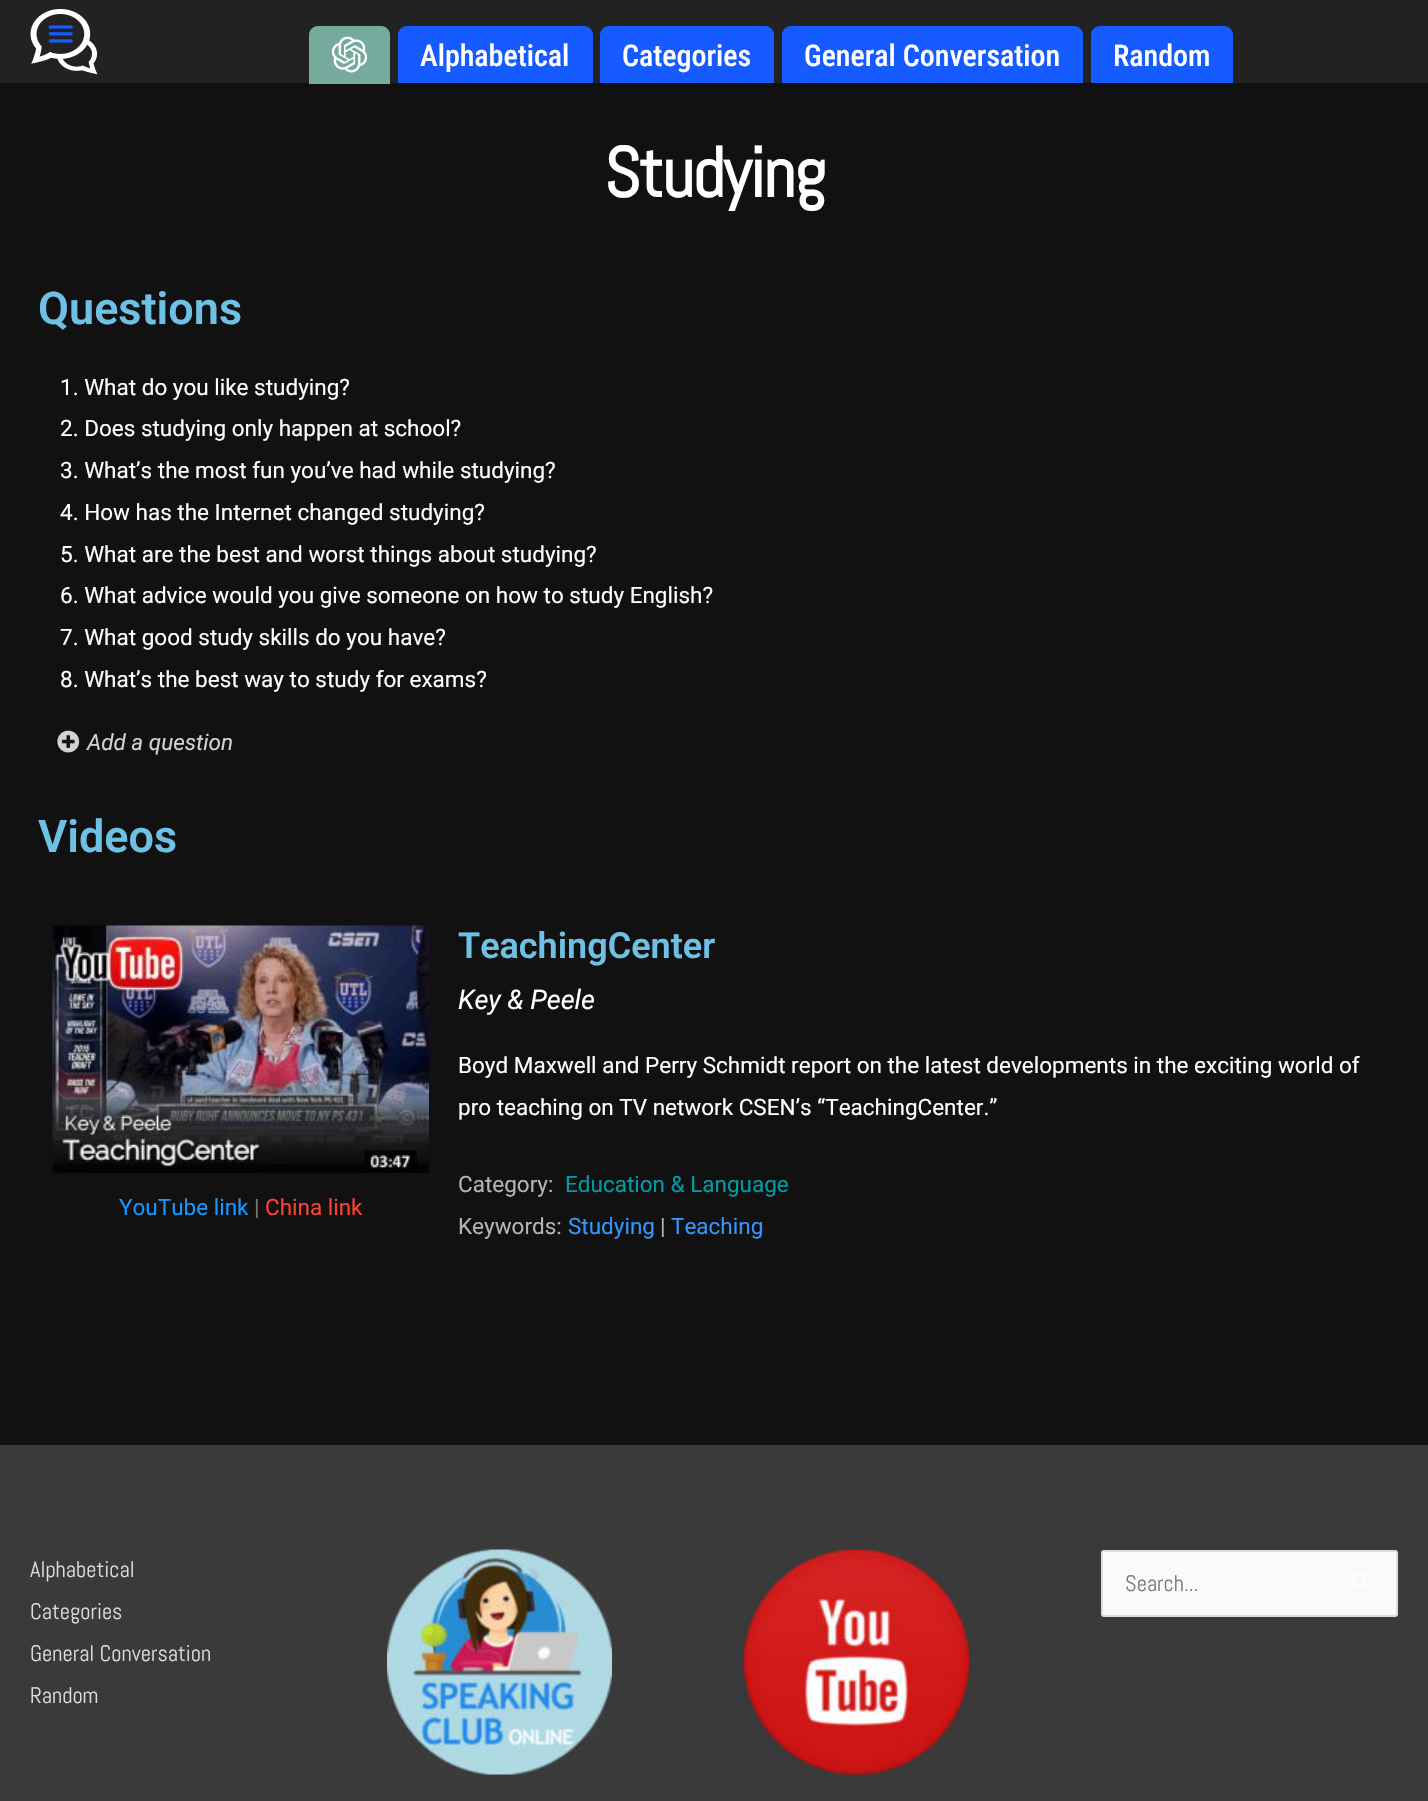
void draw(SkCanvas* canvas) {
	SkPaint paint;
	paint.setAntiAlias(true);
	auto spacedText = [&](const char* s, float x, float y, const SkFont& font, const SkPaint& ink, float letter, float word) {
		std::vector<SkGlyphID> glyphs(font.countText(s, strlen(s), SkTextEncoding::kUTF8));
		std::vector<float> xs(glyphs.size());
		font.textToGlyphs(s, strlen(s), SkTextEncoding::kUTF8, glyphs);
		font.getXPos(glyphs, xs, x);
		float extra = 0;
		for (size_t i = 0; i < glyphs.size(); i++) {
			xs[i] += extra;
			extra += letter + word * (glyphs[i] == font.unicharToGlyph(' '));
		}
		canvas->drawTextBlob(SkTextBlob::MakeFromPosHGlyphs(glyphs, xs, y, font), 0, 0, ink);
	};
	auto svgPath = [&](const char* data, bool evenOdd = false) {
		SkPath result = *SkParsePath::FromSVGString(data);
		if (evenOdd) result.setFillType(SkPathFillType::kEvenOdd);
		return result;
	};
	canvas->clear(0xff111111);
	paint.setColor(0xff222222);
	canvas->drawRect(SkRect::MakeXYWH(0, 0, 1428, 83), paint);
	canvas->drawImageRect(SkImages::DeferredFromEncodedData(SkData::MakeFromFileName("img1.png")), SkRect::MakeXYWH(30, 9, 68, 66), SkSamplingOptions());
	paint.setColor(0xff76aa9d);
	canvas->drawPath(svgPath("M318 26H381C386 26 390 30 390 35V84H309V35C309 30 313 26 318 26Z"), paint);
	canvas->drawImageRect(SkImages::DeferredFromEncodedData(SkData::MakeFromFileName("img2.png")), SkRect::MakeXYWH(331, 36, 37, 37), SkSamplingOptions());
	paint.setColor(0xff165bff);
	canvas->drawPath(svgPath("M407 26H584C589 26 593 30 593 35V83H398V35C398 30 402 26 407 26Z"), paint);
	SkFont f1(fontMgr->matchFamilyStyle("Roboto Condensed", SkFontStyle(500, SkFontStyle::kNormal_Width, SkFontStyle::kUpright_Slant)), 30);
	f1.setSubpixel(true);
	paint.setColor(0xffffffff);
	canvas->drawString("Alphabetical", 420, 66, f1, paint);
	paint.setColor(0xff165bff);
	canvas->drawPath(svgPath("M609 26H765C770 26 774 30 774 35V83H600V35C600 30 604 26 609 26Z"), paint);
	paint.setColor(0xffffffff);
	canvas->drawString("Categories", 622, 66, f1, paint);
	paint.setColor(0xff165bff);
	canvas->drawPath(svgPath("M791 26H1074C1079 26 1083 30 1083 35V83H782V35C782 30 786 26 791 26Z"), paint);
	paint.setColor(0xffffffff);
	canvas->drawString("General Conversation", 804, 66, f1, paint);
	paint.setColor(0xff165bff);
	canvas->drawPath(svgPath("M1100 26H1224C1229 26 1233 30 1233 35V83H1091V35C1091 30 1095 26 1100 26Z"), paint);
	paint.setColor(0xffffffff);
	canvas->drawString("Random", 1113, 66, f1, paint);
	SkFont f2(fontMgr->matchFamilyStyle("Abel", SkFontStyle::Bold()), 70.5);
	f2.setSubpixel(true);
	spacedText("Studying", 604, 197, f2, paint, -1.5, 0);
	SkFont f3(fontMgr->matchFamilyStyle("Roboto", SkFontStyle(600, SkFontStyle::kNormal_Width, SkFontStyle::kUpright_Slant)), 45);
	f3.setSubpixel(true);
	paint.setColor(0xff6ec1e4);
	canvas->drawString("Questions", 38, 324, f3, paint);
	SkFont f4(fontMgr->matchFamilyStyle("Roboto", SkFontStyle::Normal()), 22.5);
	f4.setSubpixel(true);
	paint.setColor(0xffffffff);
	canvas->drawString("1. What do you like studying?", 60, 395, f4, paint);
	canvas->drawString("2. Does studying only happen at school?", 60, 436, f4, paint);
	canvas->drawString("3. What’s the most fun you’ve had while studying?", 60, 478, f4, paint);
	canvas->drawString("4. How has the Internet changed studying?", 60, 520, f4, paint);
	canvas->drawString("5. What are the best and worst things about studying?", 60, 562, f4, paint);
	canvas->drawString("6. What advice would you give someone on how to study English?", 60, 603, f4, paint);
	canvas->drawString("7. What good study skills do you have?", 60, 645, f4, paint);
	canvas->drawString("8. What’s the best way to study for exams?", 60, 687, f4, paint);
	canvas->drawImageRect(SkImages::DeferredFromEncodedData(SkData::MakeFromFileName("img3.png")), SkRect::MakeXYWH(57, 730, 23, 23), SkSamplingOptions());
	SkFont f5(fontMgr->matchFamilyStyle("Roboto", SkFontStyle::Italic()), 22.5);
	f5.setSubpixel(true);
	paint.setColor(0xffd2d2d2);
	canvas->drawString("Add a question", 87, 750, f5, paint);
	paint.setColor(0xff6ec1e4);
	canvas->drawString("Videos", 38, 852, f3, paint);
	canvas->drawImageRect(SkImages::DeferredFromEncodedData(SkData::MakeFromFileName("img4.png")), SkRect::MakeXYWH(52, 925, 377, 248), SkSamplingOptions());
	paint.setColor(0xff1696ff);
	canvas->drawString("YouTube link", 119, 1215, f4, paint);
	paint.setColor(0xff7a7a7a);
	canvas->drawString("|", 254, 1215, f4, paint);
	paint.setColor(0xffff4135);
	canvas->drawString("China link", 265, 1215, f4, paint);
	SkFont f6(fontMgr->matchFamilyStyle("Roboto", SkFontStyle(600, SkFontStyle::kNormal_Width, SkFontStyle::kUpright_Slant)), 36);
	f6.setSubpixel(true);
	paint.setColor(0xff6ec1e4);
	canvas->drawString("TeachingCenter", 458, 958, f6, paint);
	SkFont f7(fontMgr->matchFamilyStyle("Roboto", SkFontStyle::Italic()), 27);
	f7.setSubpixel(true);
	paint.setColor(0xffffffff);
	canvas->drawString("Key & Peele", 458, 1009, f7, paint);
	canvas->drawString("Boyd Maxwell and Perry Schmidt report on the latest developments in the exciting world of", 458, 1073, f4, paint);
	canvas->drawString("pro teaching on TV network CSEN’s “TeachingCenter.”", 458, 1115, f4, paint);
	paint.setColor(0xffb7b3b3);
	canvas->drawString("Category:", 458, 1192, f4, paint);
	paint.setColor(0xff019ba5);
	canvas->drawString("Education & Language", 565, 1192, f4, paint);
	paint.setColor(0xffb7b3b3);
	canvas->drawString("Keywords:", 458, 1234, f4, paint);
	paint.setColor(0xff3496ff);
	canvas->drawString("Studying", 568, 1234, f4, paint);
	paint.setColor(0xffb7b3b3);
	canvas->drawString("|", 660, 1234, f4, paint);
	paint.setColor(0xff3496ff);
	canvas->drawString("Teaching", 671, 1234, f4, paint);
	paint.setColor(0xff3a3a3a);
	canvas->drawRect(SkRect::MakeXYWH(0, 1445, 1428, 356), paint);
	SkFont f8(fontMgr->matchFamilyStyle("Abel", SkFontStyle::Normal()), 22.5);
	f8.setSubpixel(true);
	paint.setColor(0xffdddddd);
	canvas->drawString("Alphabetical", 30, 1577, f8, paint);
	canvas->drawString("Categories", 30, 1619, f8, paint);
	canvas->drawString("General Conversation", 30, 1661, f8, paint);
	canvas->drawString("Random", 30, 1703, f8, paint);
	canvas->drawImageRect(SkImages::DeferredFromEncodedData(SkData::MakeFromFileName("img5.png")), SkRect::MakeXYWH(387, 1549, 225, 226), SkSamplingOptions());
	canvas->drawImageRect(SkImages::DeferredFromEncodedData(SkData::MakeFromFileName("img6.png")), SkRect::MakeXYWH(744, 1549, 225, 226), SkSamplingOptions());
	paint.setColor(0xfffafafa);
	canvas->drawRoundRect(SkRect::MakeXYWH(1102, 1551, 295, 65), 2, 2, paint);
	paint.setStroke(true);
	paint.setStrokeWidth(2);
	paint.setColor(0xffdddddd);
	canvas->drawRoundRect(SkRect::MakeXYWH(1102, 1551, 295, 65), 2, 2, paint);
	paint.setStroke(false);
	paint.setColor(0xff7a7a7a);
	canvas->drawString("Search...", 1125, 1591, f8, paint);
	canvas->drawImageRect(SkImages::DeferredFromEncodedData(SkData::MakeFromFileName("img7.png")), SkRect::MakeXYWH(1352, 1572, 19, 19), SkSamplingOptions());
}
